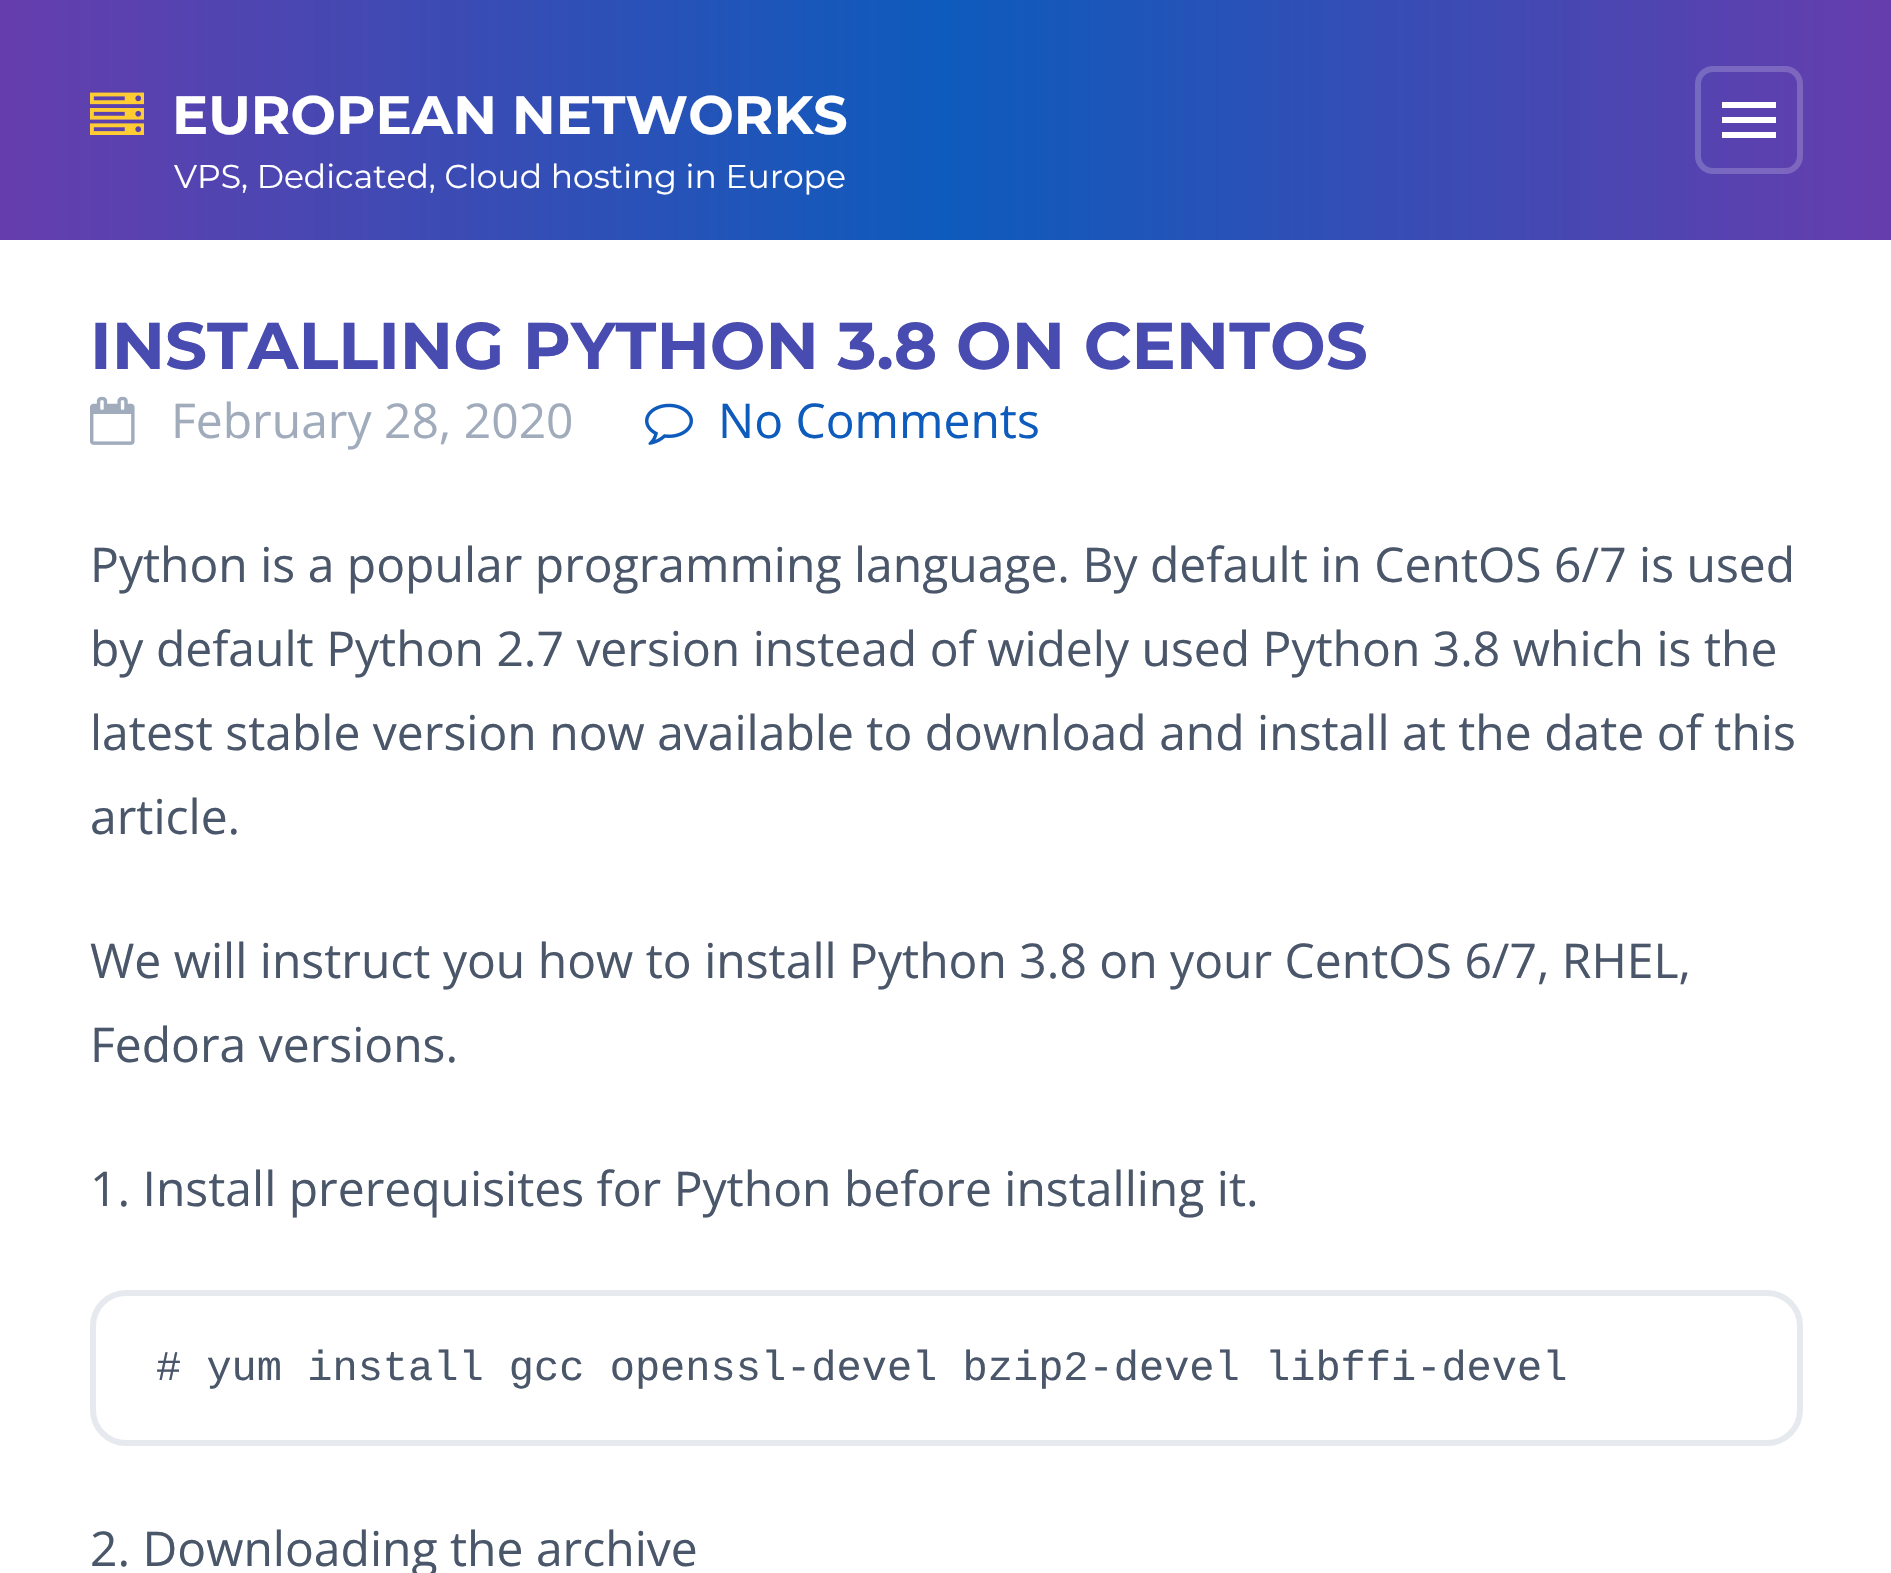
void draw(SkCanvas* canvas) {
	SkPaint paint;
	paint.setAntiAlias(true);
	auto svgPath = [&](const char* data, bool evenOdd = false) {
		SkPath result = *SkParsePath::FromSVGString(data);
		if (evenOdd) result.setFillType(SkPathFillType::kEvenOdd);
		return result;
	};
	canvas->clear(0xffffffff);
	{
		const SkColor colors[] = {0xff663dad, 0xff0d5bbc, 0xff663dad};
		const float stops[] = {0, 0.5, 1};
		const SkPoint ends[] = {{0, 120}, {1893, 120}};
		paint.setShader(SkGradientShader::MakeLinear(ends, colors, stops, 3, SkTileMode::kClamp));
		paint.setAlpha(255);
	}
	canvas->drawRect(SkRect::MakeXYWH(0, 0, 1891, 240), paint);
	canvas->drawImageRect(SkImages::DeferredFromEncodedData(SkData::MakeFromFileName("img1.png")), SkRect::MakeXYWH(90, 92, 54, 43), SkSamplingOptions());
	SkFont f1(fontMgr->matchFamilyStyle("Montserrat", SkFontStyle::Bold()), 54);
	f1.setSubpixel(true);
	paint.setShader(nullptr);
	paint.setColor(0xffffffff);
	canvas->drawString("EUROPEAN NETWORKS", 172, 134, f1, paint);
	SkFont f2(fontMgr->matchFamilyStyle("Montserrat", SkFontStyle::Normal()), 33);
	f2.setSubpixel(true);
	canvas->drawString("VPS, Dedicated, Cloud hosting in Europe", 174, 188, f2, paint);
	paint.setStroke(true);
	paint.setStrokeWidth(6);
	paint.setColor(0x33ffffff);
	canvas->drawRoundRect(SkRect::MakeXYWH(1698, 69, 102, 102), 15, 15, paint);
	paint.setStroke(false);
	paint.setColor(0xffffffff);
	canvas->drawPath(svgPath("M1722 102H1776V108H1722ZM1722 123V117H1776V123ZM1722 138V132H1776V138Z"), paint);
	SkFont f3(fontMgr->matchFamilyStyle("Montserrat", SkFontStyle::Bold()), 66);
	f3.setSubpixel(true);
	paint.setColor(0xff484baf);
	canvas->drawString("INSTALLING PYTHON 3.8 ON CENTOS", 90, 369, f3, paint);
	canvas->drawImageRect(SkImages::DeferredFromEncodedData(SkData::MakeFromFileName("img2.png")), SkRect::MakeXYWH(90, 396, 45, 49), SkSamplingOptions());
	SkFont f4(fontMgr->matchFamilyStyle("Open Sans", SkFontStyle::Normal()), 48);
	f4.setSubpixel(true);
	paint.setColor(0xffa0abbc);
	canvas->drawString("February 28, 2020", 171, 438, f4, paint);
	canvas->drawImageRect(SkImages::DeferredFromEncodedData(SkData::MakeFromFileName("img3.png")), SkRect::MakeXYWH(645, 403, 48, 42), SkSamplingOptions());
	paint.setColor(0xff0d5bbc);
	canvas->drawString("No Comments", 718, 438, f4, paint);
	paint.setColor(0xff4a5669);
	canvas->drawString("Python is a popular programming language. By default in CentOS 6/7 is used", 90, 582, f4, paint);
	canvas->drawString("by default Python 2.7 version instead of widely used Python 3.8 which is the", 90, 666, f4, paint);
	canvas->drawString("latest stable version now available to download and install at the date of this", 90, 750, f4, paint);
	canvas->drawString("article.", 90, 834, f4, paint);
	canvas->drawString("We will instruct you how to install Python 3.8 on your CentOS 6/7, RHEL,", 90, 978, f4, paint);
	canvas->drawString("Fedora versions.", 90, 1062, f4, paint);
	canvas->drawString("1. Install prerequisites for Python before installing it.", 90, 1206, f4, paint);
	paint.setStroke(true);
	paint.setColor(0xffe6e9ee);
	canvas->drawRoundRect(SkRect::MakeXYWH(93, 1293, 1707, 150), 33, 33, paint);
	SkFont f5(fontMgr->matchFamilyStyle("Liberation Mono", SkFontStyle::Normal()), 42);
	f5.setSubpixel(true);
	paint.setStroke(false);
	paint.setColor(0xff4a5669);
	canvas->drawString("# yum install gcc openssl-devel bzip2-devel libffi-devel", 156, 1380, f5, paint);
	canvas->drawString("2. Downloading the archive", 90, 1566, f4, paint);
}
